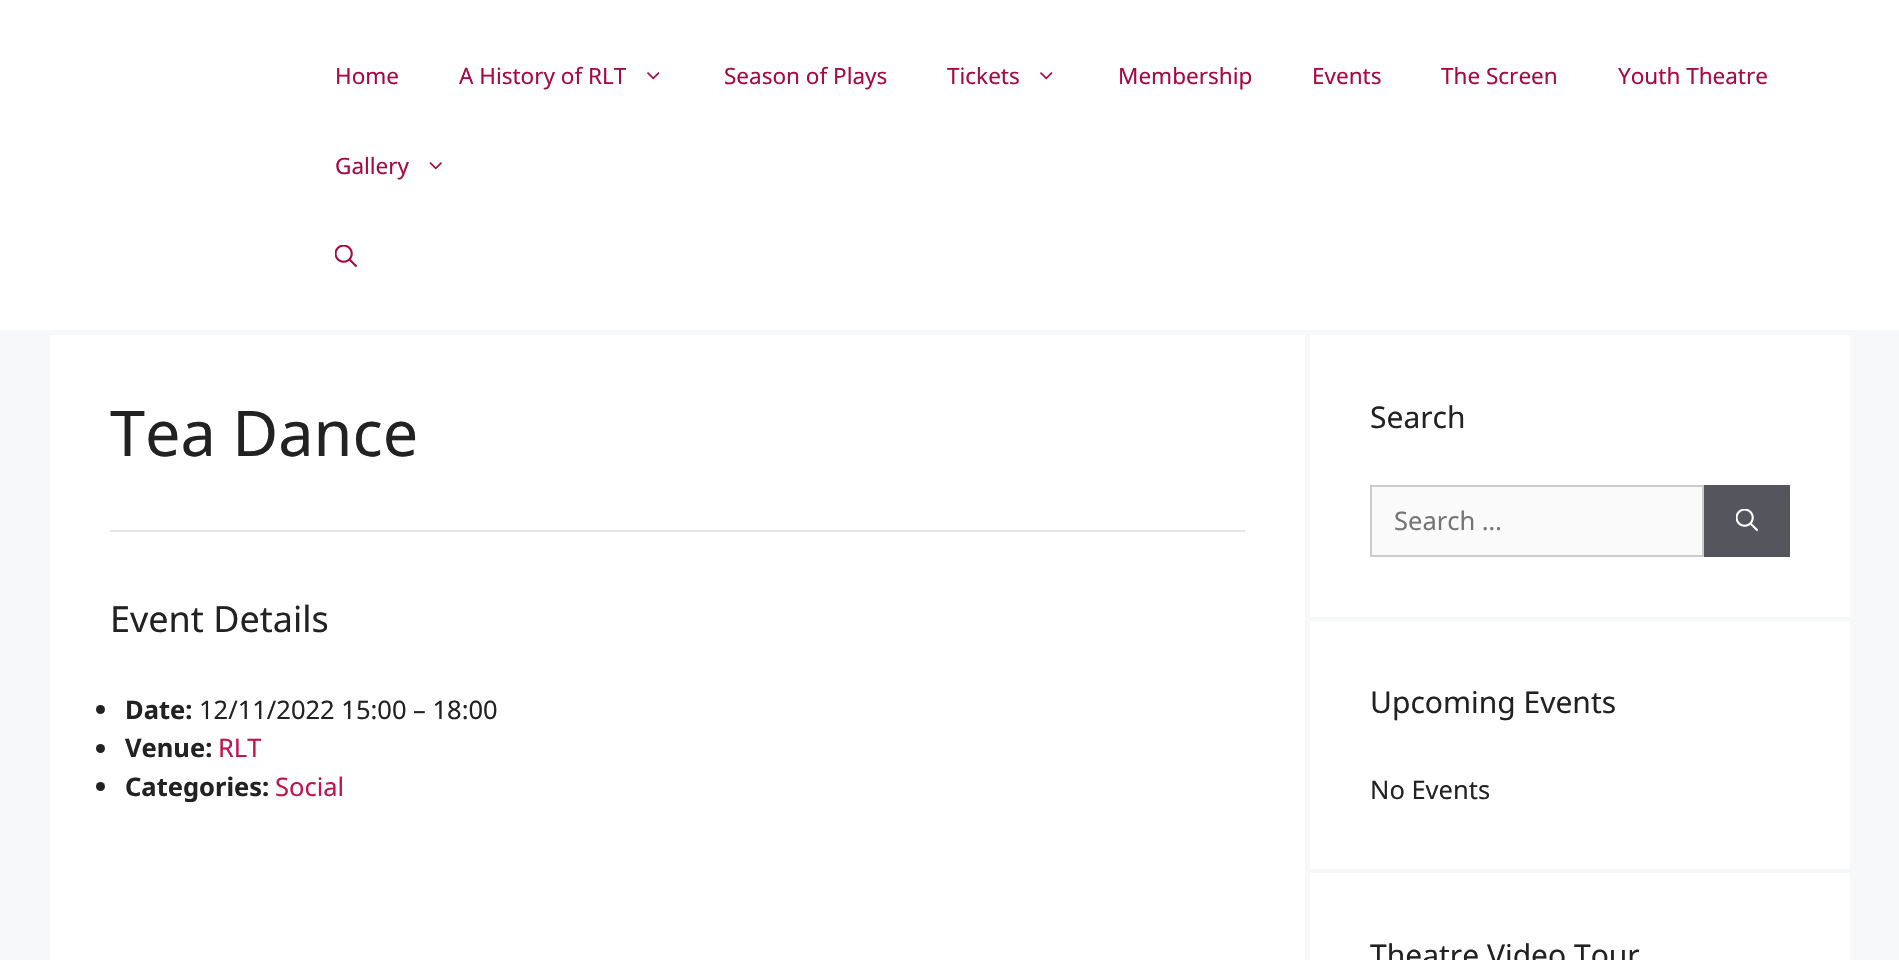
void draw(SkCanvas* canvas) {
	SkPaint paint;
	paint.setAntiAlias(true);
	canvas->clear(0xfff7f8f9);
	paint.setColor(0xffffffff);
	canvas->drawRect(SkRect::MakeXYWH(0, 0, 1899, 330), paint);
	SkFont f1(fontMgr->matchFamilyStyle("Noto Sans", SkFontStyle::Normal()), 22.5);
	f1.setSubpixel(true);
	paint.setColor(0xffa50a43);
	canvas->drawString("Home", 335, 84, f1, paint);
	canvas->drawString("A History of RLT", 459, 84, f1, paint);
	canvas->drawImageRect(SkImages::DeferredFromEncodedData(SkData::MakeFromFileName("img1.png")), SkRect::MakeXYWH(647, 72, 13, 8), SkSamplingOptions());
	canvas->drawString("Season of Plays", 724, 84, f1, paint);
	canvas->drawString("Tickets", 947, 84, f1, paint);
	canvas->drawImageRect(SkImages::DeferredFromEncodedData(SkData::MakeFromFileName("img1.png")), SkRect::MakeXYWH(1040, 72, 13, 8), SkSamplingOptions());
	canvas->drawString("Membership", 1118, 84, f1, paint);
	canvas->drawString("Events", 1312, 84, f1, paint);
	canvas->drawString("The Screen", 1441, 84, f1, paint);
	canvas->drawString("Youth Theatre", 1618, 84, f1, paint);
	canvas->drawString("Gallery", 335, 174, f1, paint);
	canvas->drawImageRect(SkImages::DeferredFromEncodedData(SkData::MakeFromFileName("img2.png")), SkRect::MakeXYWH(429, 162, 13, 8), SkSamplingOptions());
	canvas->drawImageRect(SkImages::DeferredFromEncodedData(SkData::MakeFromFileName("img3.png")), SkRect::MakeXYWH(335, 245, 22, 22), SkSamplingOptions());
	paint.setColor(0xffffffff);
	canvas->drawRect(SkRect::MakeXYWH(50, 335, 1255, 625), paint);
	SkFont f2(fontMgr->matchFamilyStyle("Noto Sans", SkFontStyle::Normal()), 63);
	f2.setSubpixel(true);
	paint.setColor(0xff222222);
	canvas->drawString("Tea Dance", 110, 456, f2, paint);
	paint.setColor(0xffe6e6e6);
	canvas->drawRect(SkRect::MakeXYWH(110, 530, 1135, 2), paint);
	SkFont f3(fontMgr->matchFamilyStyle("Noto Sans", SkFontStyle::Normal()), 36);
	f3.setSubpixel(true);
	paint.setColor(0xff222222);
	canvas->drawString("Event Details", 110, 632, f3, paint);
	canvas->drawCircle(100.5, 709.5, 4.5, paint);
	SkFont f4(fontMgr->matchFamilyStyle("Noto Sans", SkFontStyle::Bold()), 25.5);
	f4.setSubpixel(true);
	canvas->drawString("Date:", 125, 719, f4, paint);
	SkFont f5(fontMgr->matchFamilyStyle("Noto Sans", SkFontStyle::Normal()), 25.5);
	f5.setSubpixel(true);
	canvas->drawString("12/11/2022 15:00 – 18:00", 199, 719, f5, paint);
	canvas->drawCircle(100.5, 748.5, 4.5, paint);
	canvas->drawString("Venue:", 125, 757, f4, paint);
	paint.setColor(0xffc11451);
	canvas->drawString("RLT", 218, 757, f5, paint);
	paint.setColor(0xff222222);
	canvas->drawCircle(100.5, 786.5, 4.5, paint);
	canvas->drawString("Categories:", 125, 796, f4, paint);
	paint.setColor(0xffc11451);
	canvas->drawString("Social", 275, 796, f5, paint);
	paint.setColor(0xffffffff);
	canvas->drawRect(SkRect::MakeXYWH(1310, 335, 540, 282), paint);
	SkFont f6(fontMgr->matchFamilyStyle("Noto Sans", SkFontStyle::Normal()), 30);
	f6.setSubpixel(true);
	paint.setColor(0xff222222);
	canvas->drawString("Search", 1370, 428, f6, paint);
	paint.setColor(0xfffafafa);
	canvas->drawRect(SkRect::MakeXYWH(1371, 486, 332, 70), paint);
	paint.setStroke(true);
	paint.setStrokeWidth(2);
	paint.setColor(0xffcccccc);
	canvas->drawRect(SkRect::MakeXYWH(1371, 486, 332, 70), paint);
	paint.setStroke(false);
	paint.setColor(0xff757575);
	canvas->drawString("Search …", 1394, 530, f5, paint);
	paint.setColor(0xff55555e);
	canvas->drawRect(SkRect::MakeXYWH(1704, 485, 86, 72), paint);
	canvas->drawImageRect(SkImages::DeferredFromEncodedData(SkData::MakeFromFileName("img4.png")), SkRect::MakeXYWH(1736, 509, 22, 22), SkSamplingOptions());
	paint.setColor(0xffffffff);
	canvas->drawRect(SkRect::MakeXYWH(1310, 621, 540, 248), paint);
	paint.setColor(0xff222222);
	canvas->drawString("Upcoming Events", 1370, 713, f6, paint);
	canvas->drawString("No Events", 1370, 799, f5, paint);
	paint.setColor(0xffffffff);
	canvas->drawRect(SkRect::MakeXYWH(1310, 873, 540, 87), paint);
	paint.setColor(0xff222222);
	canvas->drawString("Theatre Video Tour", 1370, 966, f6, paint);
}
